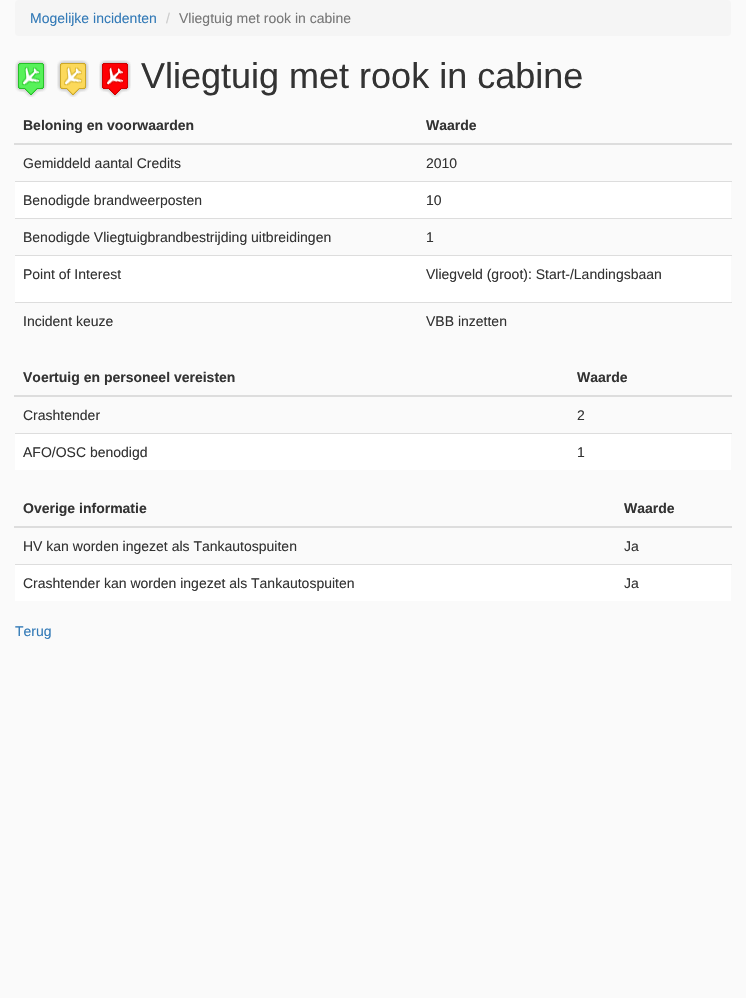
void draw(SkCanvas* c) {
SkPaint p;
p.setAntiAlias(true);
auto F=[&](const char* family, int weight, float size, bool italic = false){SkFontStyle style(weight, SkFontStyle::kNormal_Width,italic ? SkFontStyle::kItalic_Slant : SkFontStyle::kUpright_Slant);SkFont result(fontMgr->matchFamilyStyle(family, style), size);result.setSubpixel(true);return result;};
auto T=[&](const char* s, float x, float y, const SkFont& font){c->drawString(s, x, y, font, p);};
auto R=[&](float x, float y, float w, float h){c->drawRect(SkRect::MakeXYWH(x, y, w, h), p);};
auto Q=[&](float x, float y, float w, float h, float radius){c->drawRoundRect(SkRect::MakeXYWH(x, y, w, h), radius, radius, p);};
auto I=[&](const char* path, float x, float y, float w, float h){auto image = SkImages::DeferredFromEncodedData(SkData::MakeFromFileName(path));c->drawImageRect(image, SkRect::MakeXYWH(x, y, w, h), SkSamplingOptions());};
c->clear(0xfffafafa);
p.setColor(0xfff5f5f5);
Q(15,0,716,36,4);
auto f1 = F("Liberation Sans",400,14);
p.setColor(0xff337ab7);
T("Mogelijke incidenten",30,23,f1);
p.setColor(0xffcccccc);
T("/",166,23,f1);
p.setColor(0xff777777);
T("Vliegtuig met rook in cabine",179,23,f1);
I("1.png",15,60,32,37);
I("2.png",57,60,32,37);
I("3.png",99,60,32,37);
auto f2 = F("Liberation Sans",400,36);
p.setColor(0xff333333);
T("Vliegtuig met rook in cabine",141,88,f2);
auto f3 = F("Liberation Sans",700,14);
T("Beloning en voorwaarden",23,130,f3);
p.setColor(0xffdddddd);
R(14,143,718,2);
p.setColor(0xff333333);
T("Waarde",426,130,f3);
T("Gemiddeld aantal Credits",23,168,f1);
T("2010",426,168,f1);
p.setColor(0xffffffff);
R(15,182,716,36);
p.setColor(0xff333333);
T("Benodigde brandweerposten",23,205,f1);
p.setColor(0xffdddddd);
R(15,181,717,1);
p.setColor(0xff333333);
T("10",426,205,f1);
T("Benodigde Vliegtuigbrandbestrijding uitbreidingen",23,242,f1);
p.setColor(0xffdddddd);
R(15,218,717,1);
p.setColor(0xff333333);
T("1",426,242,f1);
p.setColor(0xffffffff);
R(15,256,716,46);
p.setColor(0xff333333);
T("Point of Interest",23,279,f1);
p.setColor(0xffdddddd);
R(15,255,717,1);
p.setColor(0xff333333);
T("Vliegveld (groot): Start-/Landingsbaan",426,279,f1);
T("Incident keuze",23,326,f1);
p.setColor(0xffdddddd);
R(15,302,717,1);
p.setColor(0xff333333);
T("VBB inzetten",426,326,f1);
T("Voertuig en personeel vereisten",23,382,f3);
p.setColor(0xffdddddd);
R(14,395,718,2);
p.setColor(0xff333333);
T("Waarde",577,382,f3);
T("Crashtender",23,420,f1);
T("2",577,420,f1);
p.setColor(0xffffffff);
R(15,434,716,36);
p.setColor(0xff333333);
T("AFO/OSC benodigd",23,457,f1);
p.setColor(0xffdddddd);
R(15,433,717,1);
p.setColor(0xff333333);
T("1",577,457,f1);
T("Overige informatie",23,513,f3);
p.setColor(0xffdddddd);
R(14,526,718,2);
p.setColor(0xff333333);
T("Waarde",624,513,f3);
T("HV kan worden ingezet als Tankautospuiten",23,551,f1);
T("Ja",624,551,f1);
p.setColor(0xffffffff);
R(15,565,716,36);
p.setColor(0xff333333);
T("Crashtender kan worden ingezet als Tankautospuiten",23,588,f1);
p.setColor(0xffdddddd);
R(15,564,717,1);
p.setColor(0xff333333);
T("Ja",624,588,f1);
p.setColor(0xff337ab7);
T("Terug",15,636,f1);
}
